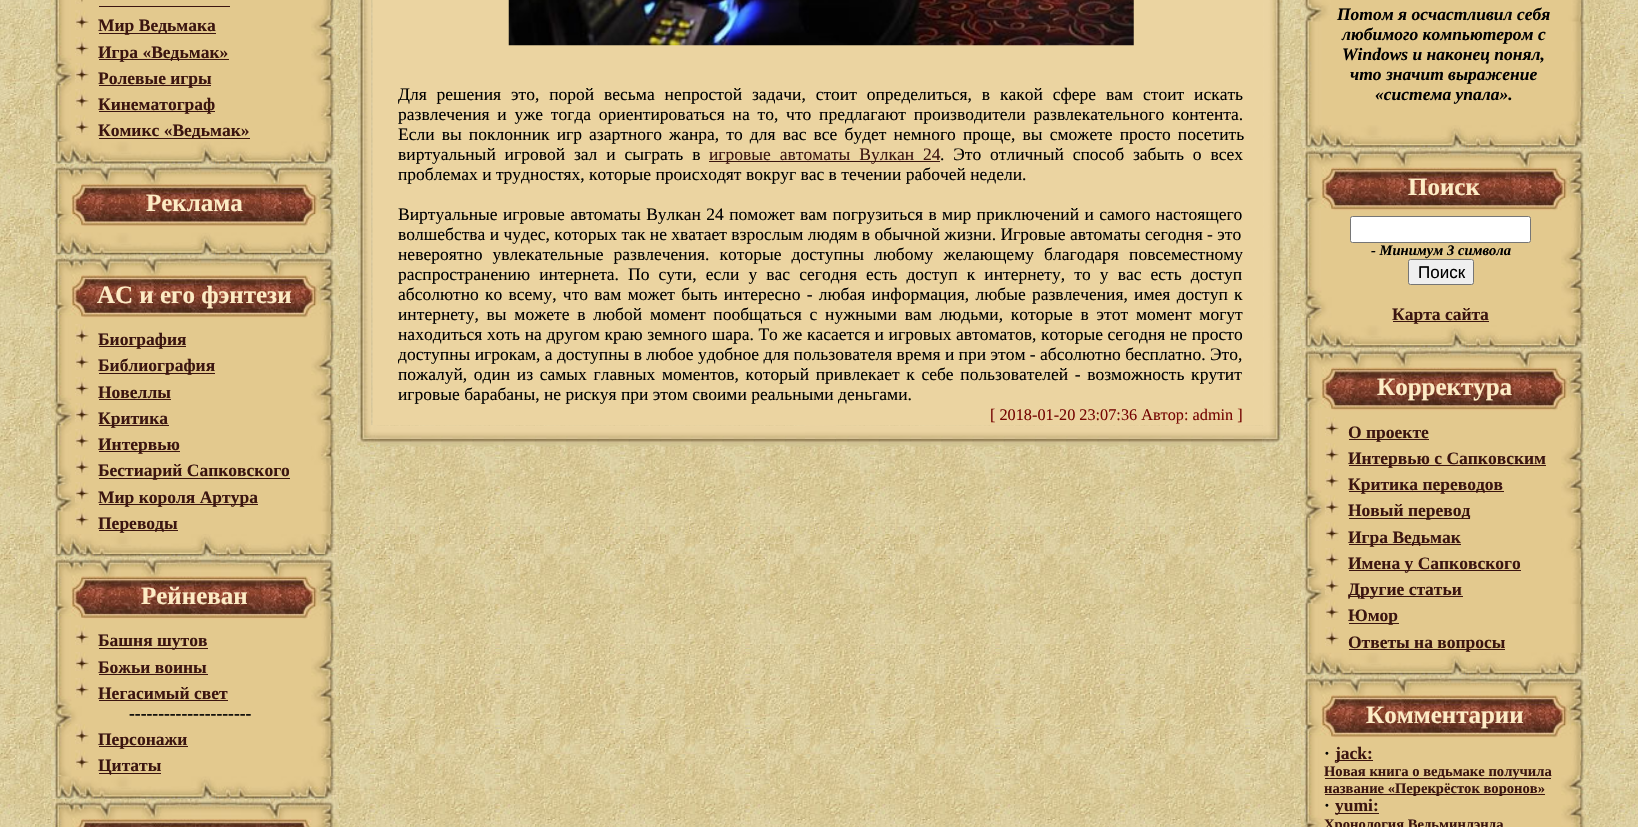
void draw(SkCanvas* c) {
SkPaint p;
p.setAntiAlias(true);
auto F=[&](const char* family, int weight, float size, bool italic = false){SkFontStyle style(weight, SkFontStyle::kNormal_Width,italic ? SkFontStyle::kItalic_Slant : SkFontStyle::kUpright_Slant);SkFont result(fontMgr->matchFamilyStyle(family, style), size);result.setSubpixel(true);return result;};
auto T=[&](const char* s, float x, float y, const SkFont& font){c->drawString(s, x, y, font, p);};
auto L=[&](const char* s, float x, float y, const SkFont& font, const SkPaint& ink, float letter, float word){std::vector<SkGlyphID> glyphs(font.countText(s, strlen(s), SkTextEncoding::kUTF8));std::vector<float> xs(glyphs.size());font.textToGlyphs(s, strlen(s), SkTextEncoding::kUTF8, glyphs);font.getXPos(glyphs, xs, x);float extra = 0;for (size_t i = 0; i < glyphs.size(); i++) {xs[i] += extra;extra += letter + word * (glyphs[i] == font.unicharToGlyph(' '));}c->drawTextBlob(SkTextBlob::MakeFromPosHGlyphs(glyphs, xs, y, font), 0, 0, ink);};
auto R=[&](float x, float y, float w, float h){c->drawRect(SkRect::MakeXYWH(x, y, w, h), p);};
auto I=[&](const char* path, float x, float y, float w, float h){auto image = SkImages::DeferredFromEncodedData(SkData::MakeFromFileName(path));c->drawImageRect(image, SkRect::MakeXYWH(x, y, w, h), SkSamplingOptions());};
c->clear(0xffffffff);
I("1.png",0,91,1638,736);
I("2.png",0,0,1638,91);
I("3.png",51,0,288,164);
I("4.png",75,0,8,4);
p.setColor(0xff3b1510);
R(99,6,131,1);
I("5.png",75,10,15,20);
R(99,33,117,1);
auto f1 = F("Liberation Serif",700,17.5);
T("Мир Ведьмака",98,31,f1);
I("6.png",75,37,15,19);
R(99,59,130,1);
T("Игра «Ведьмак»",98,58,f1);
I("7.png",75,63,15,20);
R(99,85,112,1);
T("Ролевые игры",98,84,f1);
I("8.png",75,89,15,20);
R(99,111,116,1);
T("Кинематограф",98,110,f1);
I("5.png",75,115,15,20);
R(99,138,151,1);
T("Комикс «Ведьмак»",98,136,f1);
I("9.png",51,141,288,23);
I("10.png",51,164,288,92);
I("11.png",51,164,288,63);
auto f2 = F("Liberation Serif",700,25);
p.setColor(0xfffdecc5);
T("Реклама",146,211,f2);
I("13.png",51,255,288,302);
I("14.png",51,255,288,63);
I("12.png",51,232,288,24);
T("АС и его фэнтези",97,303,f2);
I("8.png",75,324,15,20);
p.setColor(0xff3b1510);
R(99,346,87,1);
T("Биография",98,345,f1);
I("5.png",75,350,15,20);
R(99,373,116,1);
T("Библиография",98,371,f1);
I("15.png",75,377,15,19);
T("Новеллы",98,398,f1);
R(99,399,72,1);
I("16.png",75,403,15,19);
R(99,425,70,1);
T("Критика",98,424,f1);
I("17.png",75,429,15,20);
R(99,451,81,1);
T("Интервью",98,450,f1);
I("5.png",75,455,15,20);
R(99,478,191,1);
T("Бестиарий Сапковского",98,476,f1);
I("18.png",75,482,15,21);
R(99,504,159,1);
T("Мир короля Артура",98,503,f1);
I("7.png",75,508,15,20);
R(99,530,79,1);
T("Переводы",98,529,f1);
I("20.png",51,556,288,243);
I("21.png",51,556,288,63);
I("19.png",51,534,288,23);
p.setColor(0xfffdecc5);
T("Рейневан",141,604,f2);
I("5.png",75,625,15,20);
p.setColor(0xff3b1510);
R(99,648,109,1);
T("Башня шутов",98,646,f1);
I("15.png",75,652,15,19);
T("Божьи воины",98,673,f1);
R(99,674,109,1);
I("7.png",75,678,15,20);
T("Негасимый свет",98,699,f1);
R(99,700,129,1);
p.setColor(0xff000000);
T("---------------------",129,719,f1);
I("8.png",75,724,15,20);
p.setColor(0xff3b1510);
R(99,746,89,1);
T("Персонажи",98,745,f1);
I("5.png",75,750,15,20);
R(99,773,62,1);
T("Цитаты",98,771,f1);
I("22.png",51,776,288,23);
I("23.png",51,799,288,28);
I("24.png",51,799,288,28);
p.setColor(0xffebd4a1);
R(372,0,891,425);
I("25.png",357,0,16,426);
I("26.png",1263,0,20,426);
I("27.png",508,0,626,46);
auto f3 = F("Liberation Serif",400,17.5);
p.setColor(0xff000000);
L("Для решения это, порой весьма непростой задачи, стоит определиться, в какой сфере вам стоит искать",398,100,f3,p,0,5.5);
L("развлечения и уже тогда ориентироваться на то, что предлагают производители развлекательного контента.",398,120,f3,p,0,3.4);
L("Если вы поклонник игр азартного жанра, то для вас все будет немного проще, вы сможете просто посетить",398,140,f3,p,0,2.75);
L("виртуальный игровой зал и сыграть в",398,160,f3,p,0,4.5);
p.setColor(0xff3b1510);
R(709,161,231,1);
L("игровые автоматы Вулкан 24",709,160,f3,p,0,4.5);
p.setColor(0xff000000);
L(". Это отличный способ забыть о всех",940,160,f3,p,0,4.5);
T("проблемах и трудностях, которые происходят вокруг вас в течении рабочей недели.",398,180,f3);
L("Виртуальные игровые автоматы Вулкан 24 поможет вам погрузиться в мир приключений и самого настоящего",398,220,f3,p,0,1);
T("волшебства и чудес, которых так не хватает взрослым людям в обычной жизни. Игровые автоматы сегодня - это",398,240,f3);
L("невероятно увлекательные развлечения. которые доступны любому желающему благодаря повсеместному",398,260,f3,p,0,5.75);
L("распространению интернета. По сути, если у вас сегодня есть доступ к интернету, то у вас есть доступ",398,280,f3,p,0,4.75);
L("абсолютно ко всему, что вам может быть интересно - любая информация, любые развлечения, имея доступ к",398,300,f3,p,0,1.9);
L("интернету, вы можете в любой момент пообщаться с нужными вам людьми, которые в этот момент могут",398,320,f3,p,0,3.4);
L("находиться хоть на другом краю земного шара. То же касается и игровых автоматов, которые сегодня не просто",398,340,f3,p,0,.25);
T("доступны игрокам, а доступны в любое удобное для пользователя время и при этом - абсолютно бесплатно. Это,",398,360,f3);
L("пожалуй, один из самых главных моментов, который привлекает к себе пользователей - возможность крутит",398,380,f3,p,0,2.25);
T("игровые барабаны, не рискуя при этом своими реальными деньгами.",398,400,f3);
auto f4 = F("Liberation Serif",400,16.25);
p.setColor(0xff760602);
T("[ 2018-01-20 23:07:36 Автор: admin ]",990,420,f4);
I("28.png",357,425,23,22);
I("29.png",357,425,20,22);
I("30.png",380,425,883,22);
I("31.png",805,425,31,22);
I("32.png",1262,425,21,22);
I("33.png",1262,425,21,22);
I("34.png",1301,0,288,148);
auto f5 = F("Liberation Serif",700,17.5,true);
p.setColor(0xff000000);
T("Потом я осчастливил себя",1337,20,f5);
T("любимого компьютером с",1342,40,f5);
T("Windows и наконец понял,",1342,60,f5);
T("что значит выражение",1350,80,f5);
T("«система упала».",1375,100,f5);
I("36.png",1301,147,288,201);
I("37.png",1301,147,288,64);
I("35.png",1301,125,288,23);
p.setColor(0xfffdecc5);
T("Поиск",1408,195,f2);
p.setColor(0xffffffff);
c->drawRoundRect(SkRect::MakeXYWH(1350.5,216.5,180,26),2,2,p);
p.setStroke(true);
p.setStrokeWidth(1);
p.setColor(0xff767676);
c->drawRoundRect(SkRect::MakeXYWH(1350.5,216.5,180,26),2,2,p);
auto f6 = F("Liberation Serif",700,14.6,true);
p.setStroke(false);
p.setColor(0xff000000);
T("- Минимум 3 символа",1371,255,f6);
p.setColor(0xffefefef);
c->drawRoundRect(SkRect::MakeXYWH(1408.5,259.5,65,25),2,2,p);
p.setStroke(true);
p.setColor(0xff767676);
c->drawRoundRect(SkRect::MakeXYWH(1408.5,259.5,65,25),2,2,p);
auto f7 = F("Liberation Sans",400,17);
p.setStroke(false);
p.setColor(0xff000000);
T("Поиск",1418,278,f7);
p.setColor(0xff3b1510);
R(1393,321,96,1);
T("Карта сайта",1392,320,f1);
I("39.png",1301,347,288,329);
I("40.png",1301,347,288,64);
I("38.png",1301,325,288,23);
p.setColor(0xfffdecc5);
T("Корректура",1377,395,f2);
I("15.png",1325,417,15,19);
p.setColor(0xff3b1510);
R(1349,439,80,1);
T("О проекте",1348,438,f1);
I("7.png",1325,443,15,20);
R(1349,465,197,1);
T("Интервью с Сапковским",1348,464,f1);
I("8.png",1325,469,15,20);
R(1349,491,155,1);
T("Критика переводов",1348,490,f1);
I("5.png",1325,495,15,20);
R(1349,518,121,1);
T("Новый перевод",1348,516,f1);
I("15.png",1325,522,15,19);
R(1349,544,112,1);
T("Игра Ведьмак",1348,543,f1);
I("7.png",1325,548,15,20);
R(1349,570,172,1);
T("Имена у Сапковского",1348,569,f1);
I("41.png",1325,574,15,21);
R(1349,596,114,1);
T("Другие статьи",1348,595,f1);
I("42.png",1325,600,15,20);
R(1349,623,50,1);
T("Юмор",1348,621,f1);
I("15.png",1325,627,15,19);
R(1349,649,156,1);
T("Ответы на вопросы",1348,648,f1);
I("44.png",1301,675,288,152);
I("45.png",1301,675,288,63);
I("43.png",1301,652,288,24);
p.setColor(0xfffdecc5);
T("Комментарии",1366,723,f2);
p.setColor(0xff000000);
T("·",1324,759,f1);
p.setColor(0xff3b1510);
R(1335,760,38,1);
T("jack:",1335,759,f1);
R(1325,778,226,1);
auto f8 = F("Liberation Serif",700,14.6);
T("Новая книга о ведьмаке получила",1324,776,f8);
R(1325,794,220,1);
T("название «Перекрёсток воронов»",1324,793,f8);
p.setColor(0xff000000);
T("·",1324,811,f1);
p.setColor(0xff3b1510);
R(1335,813,44,1);
T("yumi:",1335,811,f1);
T("Хронология Ведьминлэнда",1324,829,f8);
}
